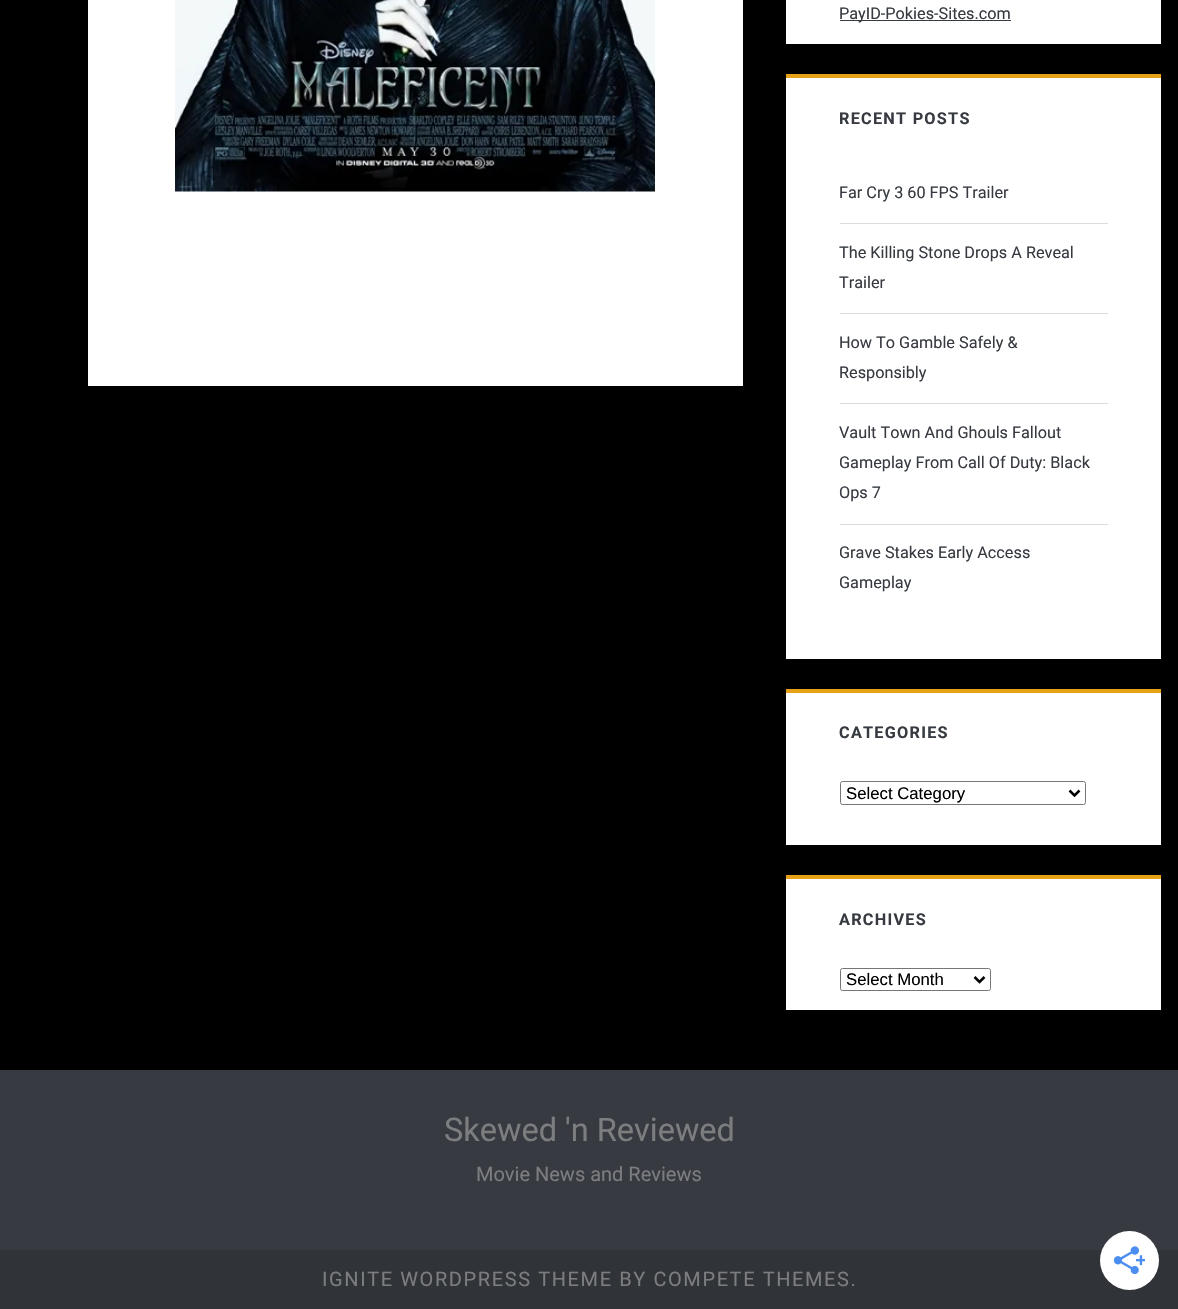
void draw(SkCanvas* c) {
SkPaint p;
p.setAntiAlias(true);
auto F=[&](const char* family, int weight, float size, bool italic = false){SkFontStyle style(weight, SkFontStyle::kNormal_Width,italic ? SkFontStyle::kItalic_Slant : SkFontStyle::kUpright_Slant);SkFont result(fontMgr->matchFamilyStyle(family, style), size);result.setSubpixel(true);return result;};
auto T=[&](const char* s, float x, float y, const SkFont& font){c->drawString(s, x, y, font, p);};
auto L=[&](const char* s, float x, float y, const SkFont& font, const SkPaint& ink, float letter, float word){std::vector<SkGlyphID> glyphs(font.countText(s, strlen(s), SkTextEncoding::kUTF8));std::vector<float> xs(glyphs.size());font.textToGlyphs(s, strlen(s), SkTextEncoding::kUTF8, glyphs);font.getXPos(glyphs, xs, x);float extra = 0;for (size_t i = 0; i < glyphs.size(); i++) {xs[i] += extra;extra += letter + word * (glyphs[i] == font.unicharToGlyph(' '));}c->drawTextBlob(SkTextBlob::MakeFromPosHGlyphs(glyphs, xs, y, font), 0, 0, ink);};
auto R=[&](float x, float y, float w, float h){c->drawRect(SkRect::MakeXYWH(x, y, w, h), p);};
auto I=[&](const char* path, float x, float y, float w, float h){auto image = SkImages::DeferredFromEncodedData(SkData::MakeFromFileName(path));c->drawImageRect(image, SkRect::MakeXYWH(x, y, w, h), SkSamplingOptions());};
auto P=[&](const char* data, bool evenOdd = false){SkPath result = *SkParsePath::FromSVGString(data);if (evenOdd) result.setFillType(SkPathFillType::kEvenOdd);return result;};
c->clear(0xff000000);
p.setColor(0xffffffff);
R(88,0,655,386);
I("1.png",175,0,480,192);
R(786,0,375,44);
p.setColor(0xff373b41);
R(840,20,171,1);
auto f1 = F("Roboto",400,16.25);
T("PayID-Pokies-Sites.com",839,19,f1);
p.setColor(0xffffffff);
R(786,78,375,581);
p.setColor(0xffe6a117);
R(786,74,375,4);
auto f2 = F("Roboto",700,16.25);
p.setColor(0xff373b41);
L("RECENT POSTS",839,124,f2,p,1.25,0);
p.setColor(0xffd9dcdf);
R(840,223,268,1);
p.setColor(0xff373b41);
T("Far Cry 3 60 FPS Trailer",839,198,f1);
p.setColor(0xffd9dcdf);
R(840,313,268,1);
p.setColor(0xff373b41);
T("The Killing Stone Drops A Reveal",839,258,f1);
T("Trailer",839,288,f1);
p.setColor(0xffd9dcdf);
R(840,403,268,1);
p.setColor(0xff373b41);
T("How To Gamble Safely &",839,348,f1);
T("Responsibly",839,378,f1);
p.setColor(0xffd9dcdf);
R(840,524,268,1);
p.setColor(0xff373b41);
T("Vault Town And Ghouls Fallout",839,438,f1);
T("Gameplay From Call Of Duty: Black",839,468,f1);
T("Ops 7",839,498,f1);
T("Grave Stakes Early Access",839,558,f1);
T("Gameplay",839,588,f1);
p.setColor(0xffffffff);
R(786,693,375,152);
p.setColor(0xffe6a117);
R(786,689,375,4);
p.setColor(0xff373b41);
L("CATEGORIES",839,738,f2,p,1.25,0);
p.setStroke(true);
p.setStrokeWidth(1);
p.setColor(0xff767676);
c->drawRoundRect(SkRect::MakeXYWH(840.5,781.5,245,23),2,2,p);
p.setStrokeWidth(2.5);
p.setColor(0xff000000);
c->drawPath(P("M1069.5 790.5l5 5l5-5"),p);
auto f3 = F("Liberation Sans",400,16.75);
p.setStroke(false);
T("Select Category",846,799,f3);
p.setColor(0xffffffff);
R(786,879,375,131);
p.setColor(0xffe6a117);
R(786,875,375,4);
p.setColor(0xff373b41);
L("ARCHIVES",839,925,f2,p,1.25,0);
p.setStroke(true);
p.setStrokeWidth(1);
p.setColor(0xff767676);
c->drawRoundRect(SkRect::MakeXYWH(840.5,968.5,150,22),2,2,p);
p.setStrokeWidth(2.5);
p.setColor(0xff000000);
c->drawPath(P("M974.5 977l5 5l5-5"),p);
p.setStroke(false);
T("Select Month",846,985,f3);
p.setColor(0xff373b41);
R(0,1070,1178,180);
auto f4 = F("Roboto",400,32.5);
p.setColor(0xff7c7d7f);
T("Skewed 'n Reviewed",444,1141,f4);
auto f5 = F("Roboto",400,20);
T("Movie News and Reviews",476,1181,f5);
p.setColor(0xff303338);
R(0,1250,1178,59);
p.setColor(0xff7c7d7f);
L("IGNITE WORDPRESS THEME BY COMPETE THEMES.",322,1286,f5,p,1.6,0);
p.setColor(0xffffffff);
c->drawCircle(1129.5,1260.5,29.5,p);
I("2.png",1114,1246,31,28);
}
